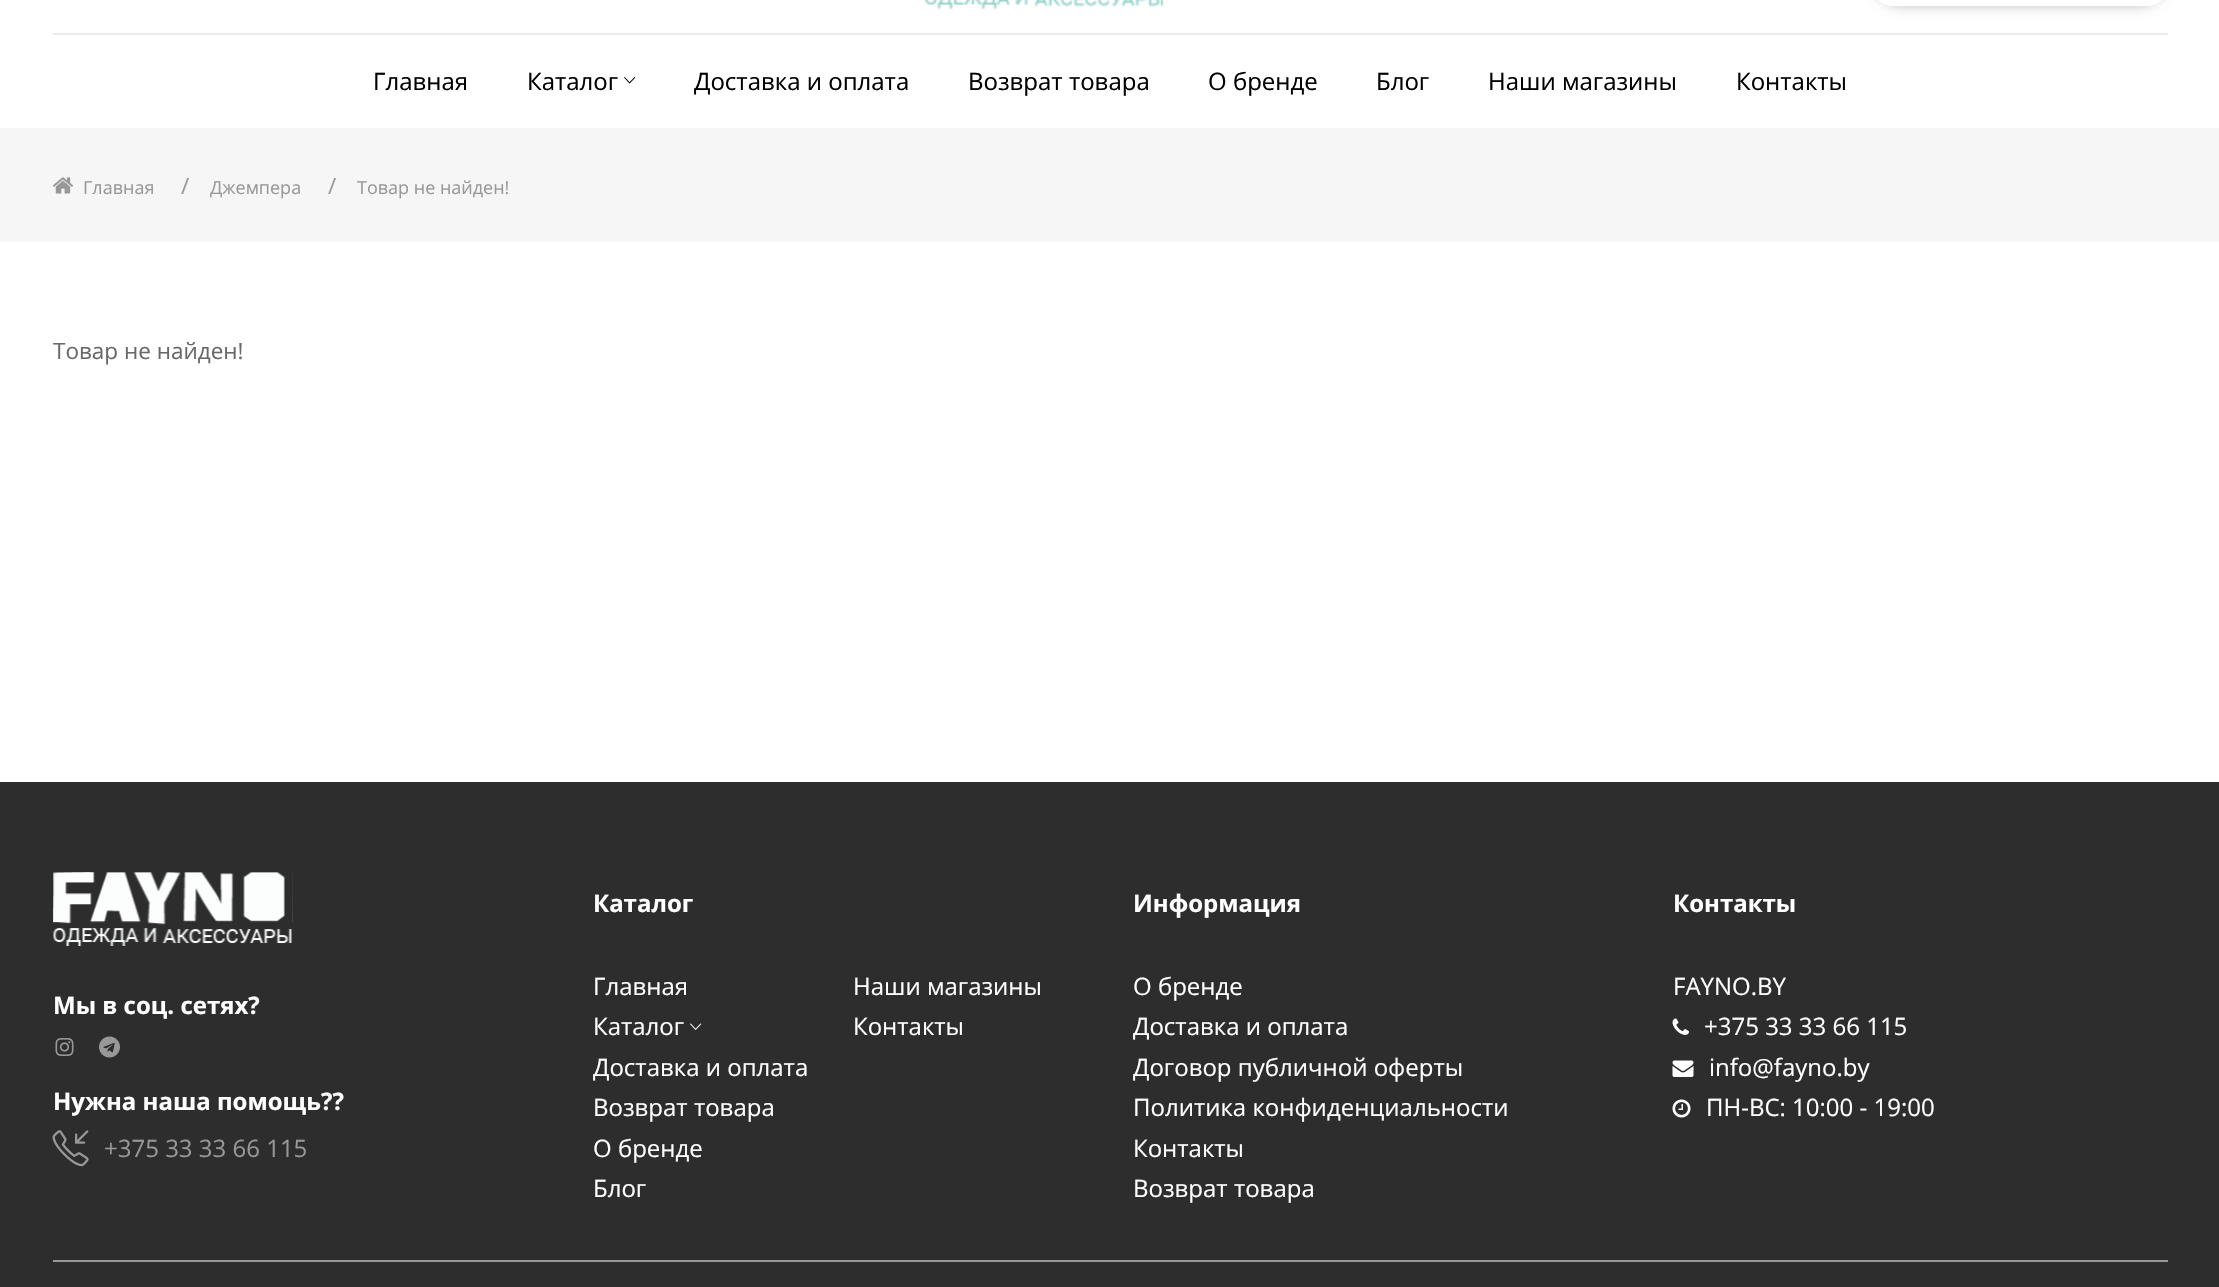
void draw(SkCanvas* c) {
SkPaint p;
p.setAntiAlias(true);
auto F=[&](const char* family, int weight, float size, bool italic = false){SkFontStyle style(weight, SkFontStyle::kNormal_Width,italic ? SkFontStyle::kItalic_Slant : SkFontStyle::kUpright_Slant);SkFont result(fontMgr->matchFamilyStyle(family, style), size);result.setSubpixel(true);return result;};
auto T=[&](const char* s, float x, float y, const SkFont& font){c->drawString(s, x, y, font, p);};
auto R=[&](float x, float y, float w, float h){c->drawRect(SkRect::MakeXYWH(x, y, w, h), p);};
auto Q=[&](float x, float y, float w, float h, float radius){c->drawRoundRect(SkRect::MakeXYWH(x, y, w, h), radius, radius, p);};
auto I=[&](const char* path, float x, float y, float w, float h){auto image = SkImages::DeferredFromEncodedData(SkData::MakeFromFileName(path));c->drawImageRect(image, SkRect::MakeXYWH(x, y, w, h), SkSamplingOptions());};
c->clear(0xffffffff);
I("1.png",924,0,240,10);
p.setColor(0x40000000);
p.setMaskFilter(SkMaskFilter::MakeBlur(kNormal_SkBlurStyle, 6));
c->drawRoundRect(SkRect::MakeXYWH(1872,-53,296,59),34.5,34.5,p);
p.setMaskFilter(nullptr);
p.setColor(0xffffffff);
Q(1872,-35,296,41,34.5);
p.setColor(0xffe9e9e9);
R(53,33,2115,2);
auto f1 = F("Open Sans",400,24);
p.setColor(0xff000000);
T("Главная",373,90,f1);
T("Каталог",527,90,f1);
I("2.png",624,77,12,7);
T("Доставка и оплата",694,90,f1);
T("Возврат товара",968,90,f1);
T("О бренде",1208,90,f1);
T("Блог",1376,90,f1);
T("Наши магазины",1488,90,f1);
T("Контакты",1736,90,f1);
p.setColor(0xfff6f6f6);
R(0,128,2219,114);
I("3.png",52,177,21,17);
auto f2 = F("Open Sans",400,18);
p.setColor(0xff989898);
T("Главная",83,194,f2);
auto f3 = F("Open Sans",400,22.5);
T("/",181,194,f3);
T("Джемпера",210,194,f2);
T("/",328,194,f3);
T("Товар не найден!",357,194,f2);
p.setColor(0xff69696c);
T("Товар не найден!",53,359,f3);
p.setColor(0xff2d2d2d);
R(0,782,2219,505);
I("4.png",53,872,240,74);
auto f4 = F("Open Sans",700,24);
p.setColor(0xffffffff);
T("Мы в соц. сетях?",53,1014,f4);
I("5.png",55,1038,19,18);
I("6.png",99,1036,21,22);
T("Нужна наша помощь?\077",53,1110,f4);
I("7.png",52,1130,37,37);
p.setColor(0xff989898);
T("+375 33 33 66 115",104,1157,f1);
p.setColor(0xffffffff);
T("Каталог",593,912,f4);
T("Главная",593,995,f1);
T("Наши магазины",853,995,f1);
T("Каталог",593,1035,f1);
I("8.png",690,1023,12,7);
T("Контакты",853,1035,f1);
T("Доставка и оплата",593,1076,f1);
T("Возврат товара",593,1116,f1);
T("О бренде",593,1157,f1);
T("Блог",593,1197,f1);
T("Информация",1133,912,f4);
T("О бренде",1133,995,f1);
T("Доставка и оплата",1133,1035,f1);
T("Договор публичной оферты",1133,1076,f1);
T("Политика конфиденциальности",1133,1116,f1);
T("Контакты",1133,1157,f1);
T("Возврат товара",1133,1197,f1);
T("Контакты",1673,912,f4);
T("FAYNO.BY",1673,995,f1);
I("9.png",1672,1018,17,17);
T("+375 33 33 66 115",1704,1035,f1);
I("10.png",1672,1060,22,17);
T("info@fayno.by",1709,1076,f1);
I("11.png",1672,1099,19,19);
T("ПН-ВС: 10:00 - 19:00",1706,1116,f1);
p.setColor(0xff989898);
R(53,1260,2115,2);
}
